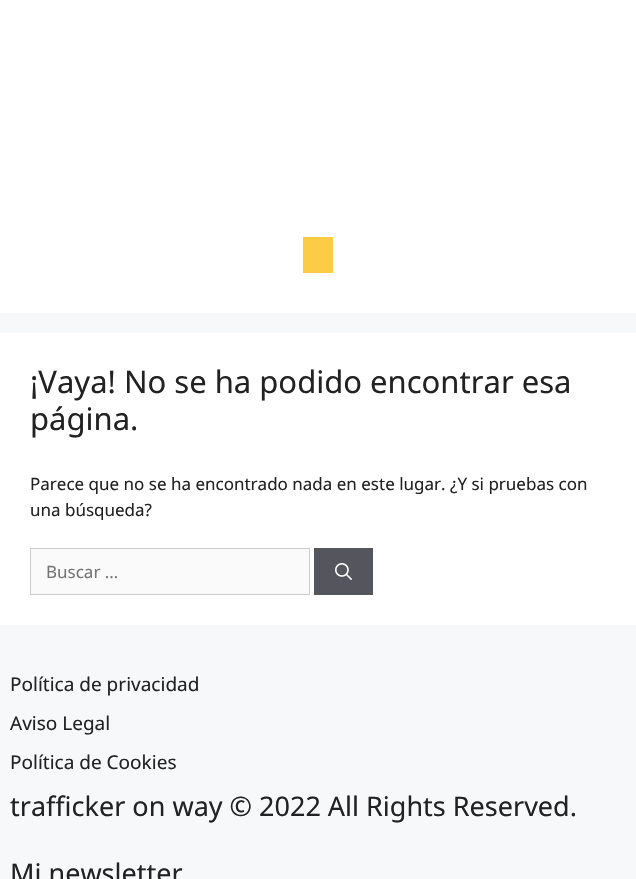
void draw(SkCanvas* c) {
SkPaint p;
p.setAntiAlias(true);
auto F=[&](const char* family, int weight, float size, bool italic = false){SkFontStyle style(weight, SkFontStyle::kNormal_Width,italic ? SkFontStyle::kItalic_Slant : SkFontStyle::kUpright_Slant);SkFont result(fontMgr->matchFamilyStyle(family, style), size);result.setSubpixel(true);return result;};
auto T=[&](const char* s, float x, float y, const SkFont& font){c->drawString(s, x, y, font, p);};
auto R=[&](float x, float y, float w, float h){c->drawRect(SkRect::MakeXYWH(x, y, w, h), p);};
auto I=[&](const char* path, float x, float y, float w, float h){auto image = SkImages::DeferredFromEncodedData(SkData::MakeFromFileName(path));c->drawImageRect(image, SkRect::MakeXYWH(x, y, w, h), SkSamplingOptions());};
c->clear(0xfff7f8f9);
p.setColor(0xffffffff);
R(0,0,636,313);
p.setColor(0xfffccc47);
R(303,237,30,36);
p.setColor(0xffffffff);
R(0,333,636,292);
auto f1 = F("Noto Sans",400,31);
p.setColor(0xff222222);
T("¡Vaya! No se ha podido encontrar esa",30,393,f1);
T("página.",30,430,f1);
auto f2 = F("Noto Sans",400,17);
T("Parece que no se ha encontrado nada en este lugar. ¿Y si pruebas con",30,490,f2);
T("una búsqueda?",30,516,f2);
p.setColor(0xfffafafa);
c->drawRect(SkRect::MakeXYWH(30.5,548.5,279,46),p);
p.setStroke(true);
p.setStrokeWidth(1);
p.setColor(0xffcccccc);
c->drawRect(SkRect::MakeXYWH(30.5,548.5,279,46),p);
p.setStroke(false);
p.setColor(0xff757575);
T("Buscar …",46,578,f2);
p.setColor(0xff55555e);
R(314,548,59,47);
I("1.png",335,563,17,17);
auto f3 = F("Noto Sans",400,19);
p.setColor(0xff222222);
T("Política de privacidad",10,691,f3);
T("Aviso Legal",10,730,f3);
T("Política de Cookies",10,769,f3);
auto f4 = F("Noto Sans",400,27);
T("trafficker on way © 2022 All Rights Reserved.",10,816,f4);
T("Mi newsletter",10,883,f4);
}
